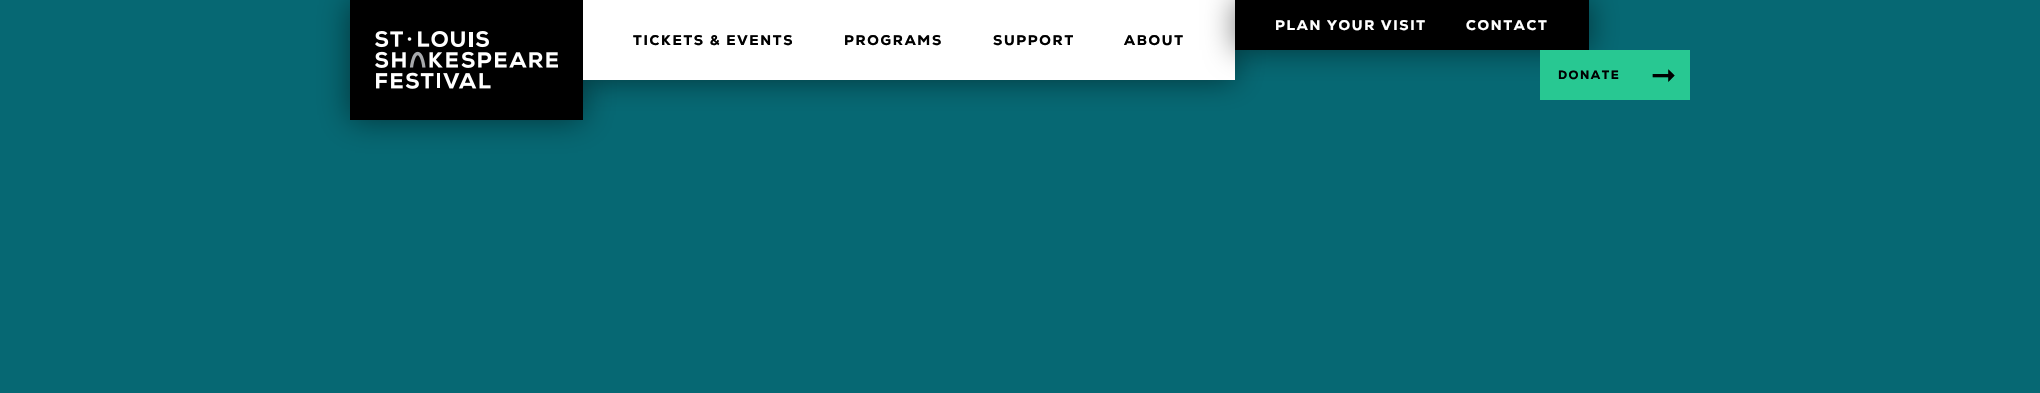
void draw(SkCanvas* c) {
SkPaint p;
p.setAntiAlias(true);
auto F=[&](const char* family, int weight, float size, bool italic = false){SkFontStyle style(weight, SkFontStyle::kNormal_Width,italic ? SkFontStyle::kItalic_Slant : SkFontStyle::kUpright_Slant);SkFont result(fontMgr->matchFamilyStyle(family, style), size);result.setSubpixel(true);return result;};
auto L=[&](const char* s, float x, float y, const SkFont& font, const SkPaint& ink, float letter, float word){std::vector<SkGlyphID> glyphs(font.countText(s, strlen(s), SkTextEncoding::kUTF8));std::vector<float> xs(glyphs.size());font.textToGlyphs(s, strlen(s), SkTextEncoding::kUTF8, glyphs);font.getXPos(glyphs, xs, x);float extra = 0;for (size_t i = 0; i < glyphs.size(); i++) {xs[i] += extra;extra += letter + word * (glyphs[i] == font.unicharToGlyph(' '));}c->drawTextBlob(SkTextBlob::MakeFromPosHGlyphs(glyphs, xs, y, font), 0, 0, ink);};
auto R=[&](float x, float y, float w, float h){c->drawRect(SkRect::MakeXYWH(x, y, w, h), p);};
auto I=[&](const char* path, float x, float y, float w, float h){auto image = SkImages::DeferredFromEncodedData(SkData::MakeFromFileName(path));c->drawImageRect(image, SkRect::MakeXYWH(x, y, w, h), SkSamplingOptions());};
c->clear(0xff066873);
p.setColor(0x80000000);
p.setMaskFilter(SkMaskFilter::MakeBlur(kNormal_SkBlurStyle, 15));
c->drawRect(SkRect::MakeXYWH(350,0,233,120),p);
p.setMaskFilter(nullptr);
p.setColor(0xff000000);
R(350,0,233,120);
I("1.png",375,31,183,58);
p.setColor(0x80000000);
p.setMaskFilter(SkMaskFilter::MakeBlur(kNormal_SkBlurStyle, 15));
c->drawRect(SkRect::MakeXYWH(583,0,652,80),p);
p.setMaskFilter(nullptr);
p.setColor(0xffffffff);
R(583,0,652,80);
p.setColor(0x80000000);
p.setMaskFilter(SkMaskFilter::MakeBlur(kNormal_SkBlurStyle, 15));
c->drawRect(SkRect::MakeXYWH(1235,0,354,50),p);
p.setMaskFilter(nullptr);
p.setColor(0xff000000);
R(1235,0,354,50);
auto f1 = F("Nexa",900,14);
p.setColor(0xffffffff);
L("PLAN YOUR VISIT",1275,30,f1,p,1.7,0);
L("CONTACT",1466,30,f1,p,1.7,0);
p.setColor(0xff000000);
L("TICKETS & EVENTS",633,45,f1,p,1.7,0);
L("PROGRAMS",844,45,f1,p,1.7,0);
L("SUPPORT",993,45,f1,p,1.7,0);
L("ABOUT",1124,45,f1,p,1.7,0);
p.setColor(0xff28c892);
R(1540,50,150,50);
auto f2 = F("Nexa",900,12);
p.setColor(0xff000000);
L("DONATE",1558,79,f2,p,1.5,0);
auto f3 = F("DejaVu Sans",400,30);
L("➞",1651,85,f3,p,1.5,0);
}
